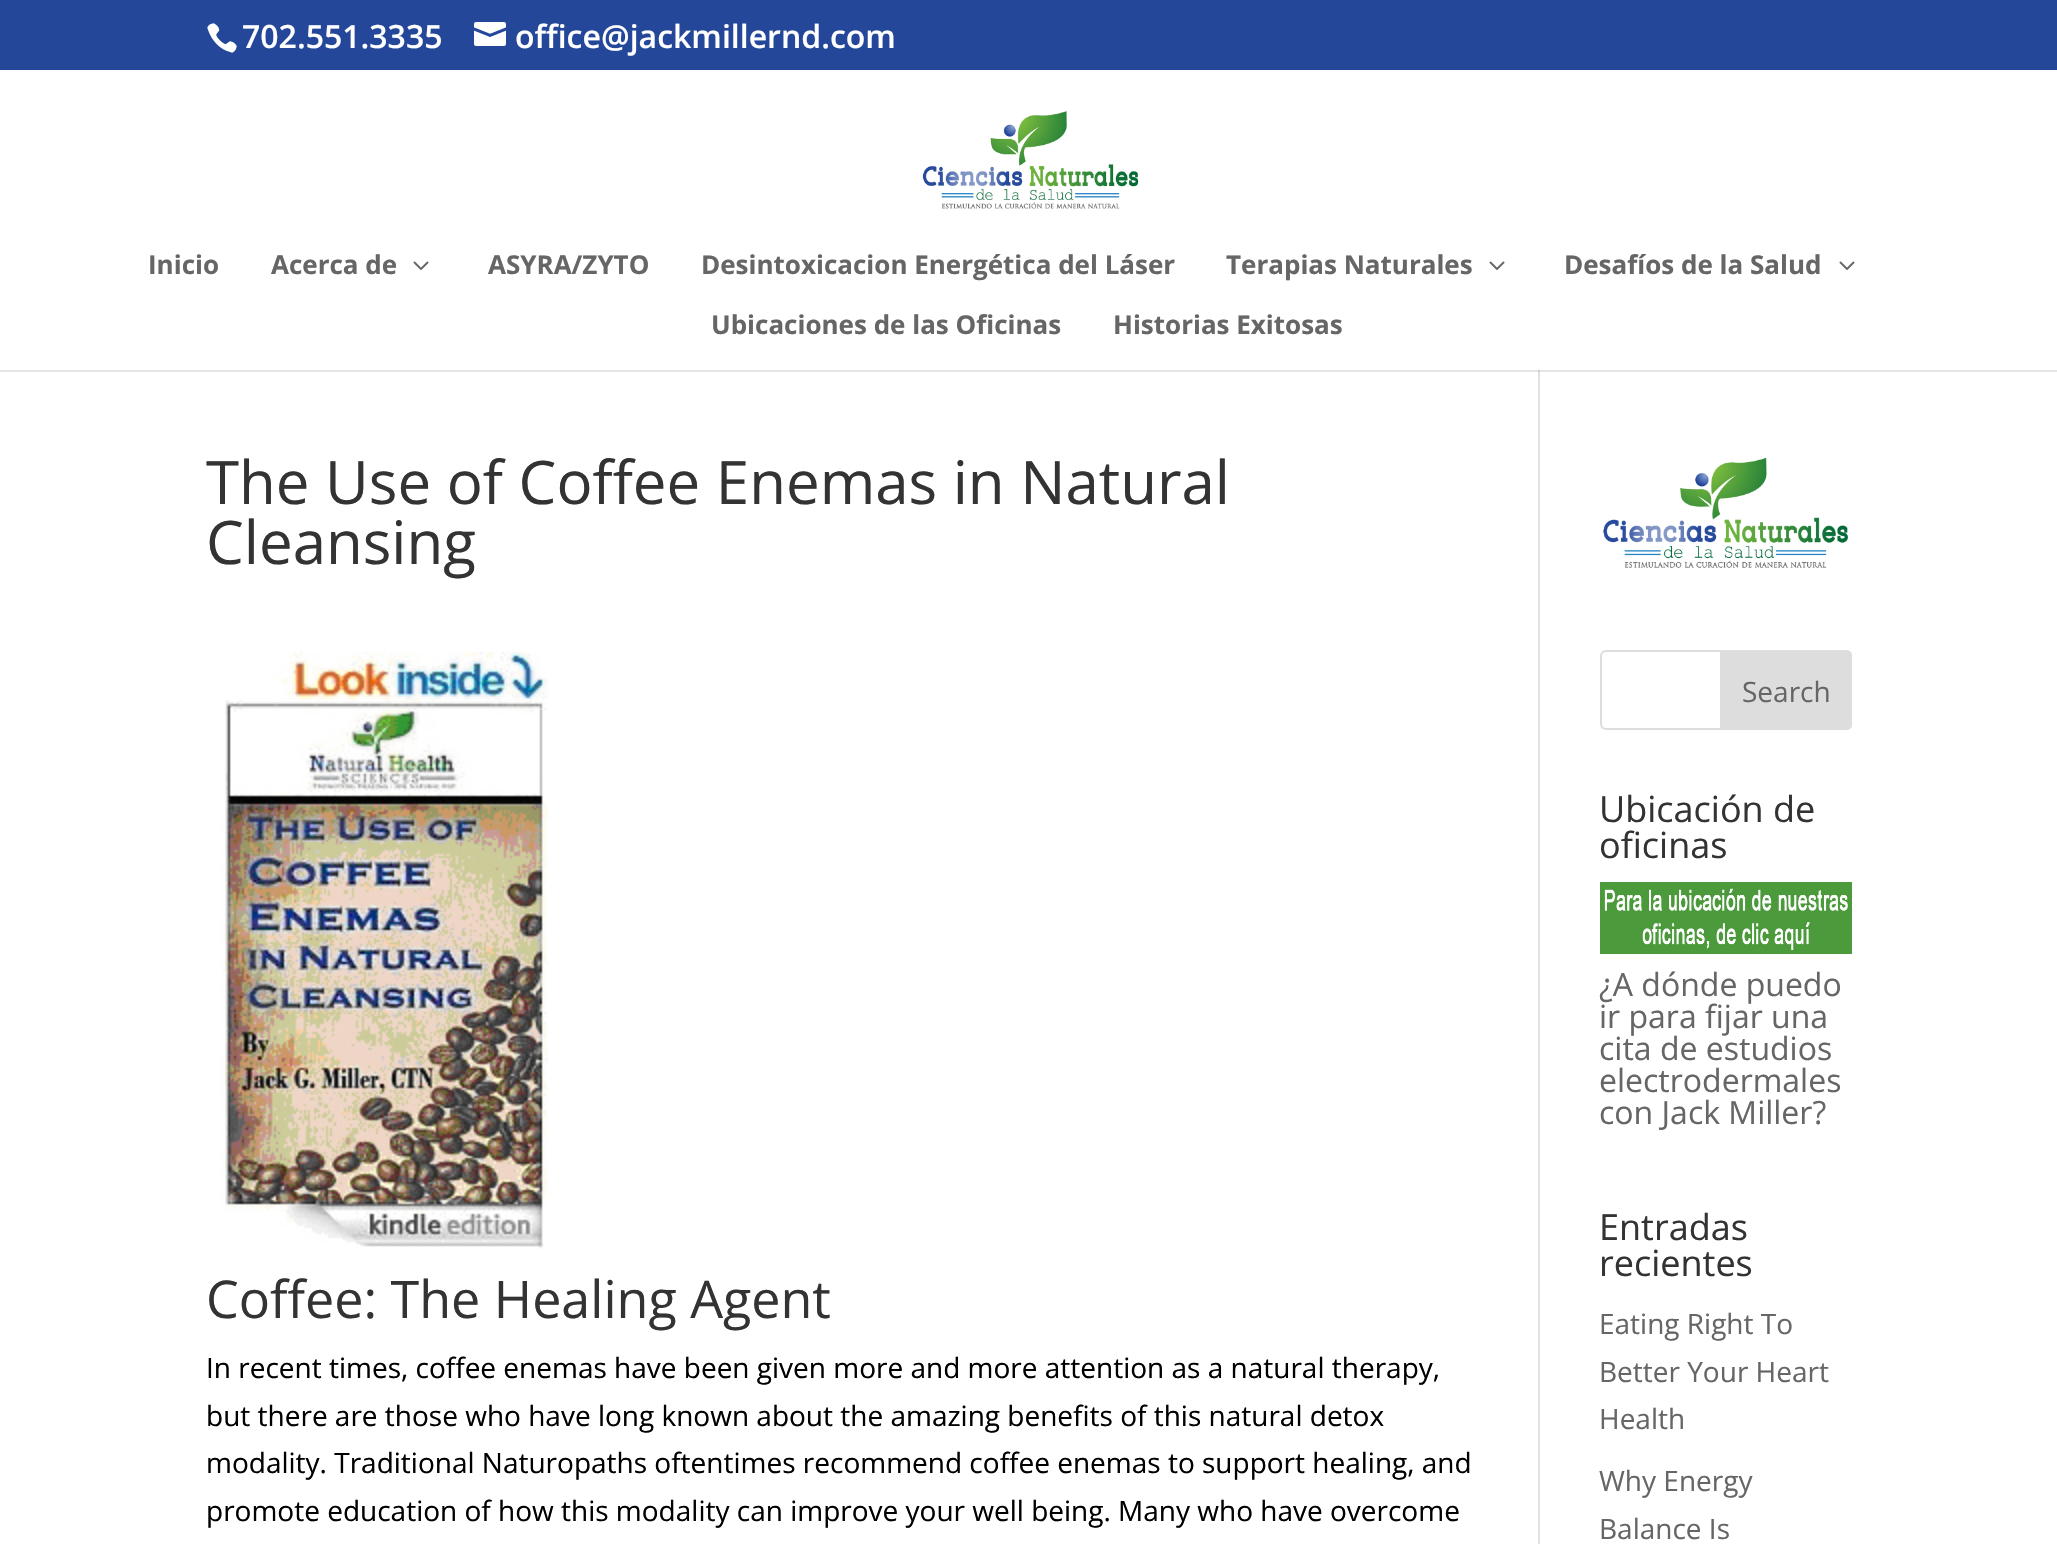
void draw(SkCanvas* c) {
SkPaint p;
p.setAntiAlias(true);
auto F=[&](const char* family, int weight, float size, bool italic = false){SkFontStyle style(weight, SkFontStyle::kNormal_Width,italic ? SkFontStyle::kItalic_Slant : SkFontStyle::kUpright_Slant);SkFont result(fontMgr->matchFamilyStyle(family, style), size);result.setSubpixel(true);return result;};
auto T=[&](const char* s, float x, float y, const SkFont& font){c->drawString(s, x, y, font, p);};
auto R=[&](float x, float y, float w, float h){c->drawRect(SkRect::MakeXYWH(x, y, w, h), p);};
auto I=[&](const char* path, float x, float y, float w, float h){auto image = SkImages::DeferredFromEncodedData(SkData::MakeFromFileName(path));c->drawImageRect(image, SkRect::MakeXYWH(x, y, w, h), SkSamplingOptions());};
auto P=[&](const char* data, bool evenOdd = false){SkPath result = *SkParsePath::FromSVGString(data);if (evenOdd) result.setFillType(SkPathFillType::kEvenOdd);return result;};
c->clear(0xffffffff);
p.setColor(0xffe6e6e6);
R(0,370,2057,2);
p.setColor(0xff244799);
R(0,0,2057,70);
I("1.png",207,23,30,30);
auto f1 = F("Open Sans",600,32);
p.setColor(0xffffffff);
T("702.551.3335",242,48,f1);
I("2.png",474,22,32,24);
T("office@jackmillernd.com",515,48,f1);
I("3.png",922,111,217,98);
auto f2 = F("Open Sans",700,26);
p.setColor(0xff666666);
T("Inicio",148,274,f2);
T("Acerca de",271,274,f2);
I("4.png",413,261,16,9);
T("ASYRA/ZYTO",488,274,f2);
T("Desintoxicacion Energética del Láser",701,274,f2);
T("Terapias Naturales",1226,274,f2);
I("4.png",1489,261,16,9);
T("Desafíos de la Salud",1564,274,f2);
I("4.png",1839,261,16,9);
T("Ubicaciones de las Oficinas",711,334,f2);
T("Historias Exitosas",1113,334,f2);
p.setColor(0xffe2e2e2);
R(1538,372,2,1172);
p.setColor(0xffcbcbcb);
R(1538,370,2,2);
auto f3 = F("Open Sans",400,60);
p.setColor(0xff333333);
T("The Use of Coffee Enemas in Natural",206,504,f3);
T("Cleansing",206,564,f3);
I("5.png",220,652,328,597);
auto f4 = F("Open Sans",400,52);
T("Coffee: The Healing Agent",206,1318,f4);
auto f5 = F("Open Sans",400,28);
p.setColor(0xff000000);
T("In recent times, coffee enemas have been given more and more attention as a natural therapy,",206,1378,f5);
T("but there are those who have long known about the amazing benefits of this natural detox",206,1426,f5);
T("modality. Traditional Naturopaths oftentimes recommend coffee enemas to support healing, and",206,1473,f5);
T("promote education of how this modality can improve your well being. Many who have overcome",206,1521,f5);
I("6.png",1603,457,246,111);
p.setStroke(true);
p.setStrokeWidth(2);
p.setColor(0xffdddddd);
c->drawRoundRect(SkRect::MakeXYWH(1601,651,250,78),5,5,p);
p.setStroke(false);
c->drawPath(P("M1721 651h125c3 0 5 2 5 5v68c0 3-2 5-5 5h-125z"),p);
p.setStroke(true);
c->drawPath(P("M1721 651h125c3 0 5 2 5 5v68c0 3-2 5-5 5h-125z"),p);
p.setStroke(false);
p.setColor(0xff666666);
T("Search",1742,702,f5);
auto f6 = F("Open Sans",400,36);
p.setColor(0xff333333);
T("Ubicación de",1599,822,f6);
T("oficinas",1599,858,f6);
I("7.png",1600,882,252,72);
auto f7 = F("Open Sans",400,32);
p.setColor(0xff666666);
T("¿A dónde puedo",1599,996,f7);
T("ir para fijar una",1599,1028,f7);
T("cita de estudios",1599,1060,f7);
T("electrodermales",1599,1092,f7);
T("con Jack Miller?",1599,1124,f7);
p.setColor(0xff333333);
T("Entradas",1599,1240,f6);
T("recientes",1599,1276,f6);
p.setColor(0xff666666);
T("Eating Right To",1599,1334,f5);
T("Better Your Heart",1599,1382,f5);
T("Health",1599,1429,f5);
T("Why Energy",1599,1491,f5);
T("Balance Is",1599,1539,f5);
}
